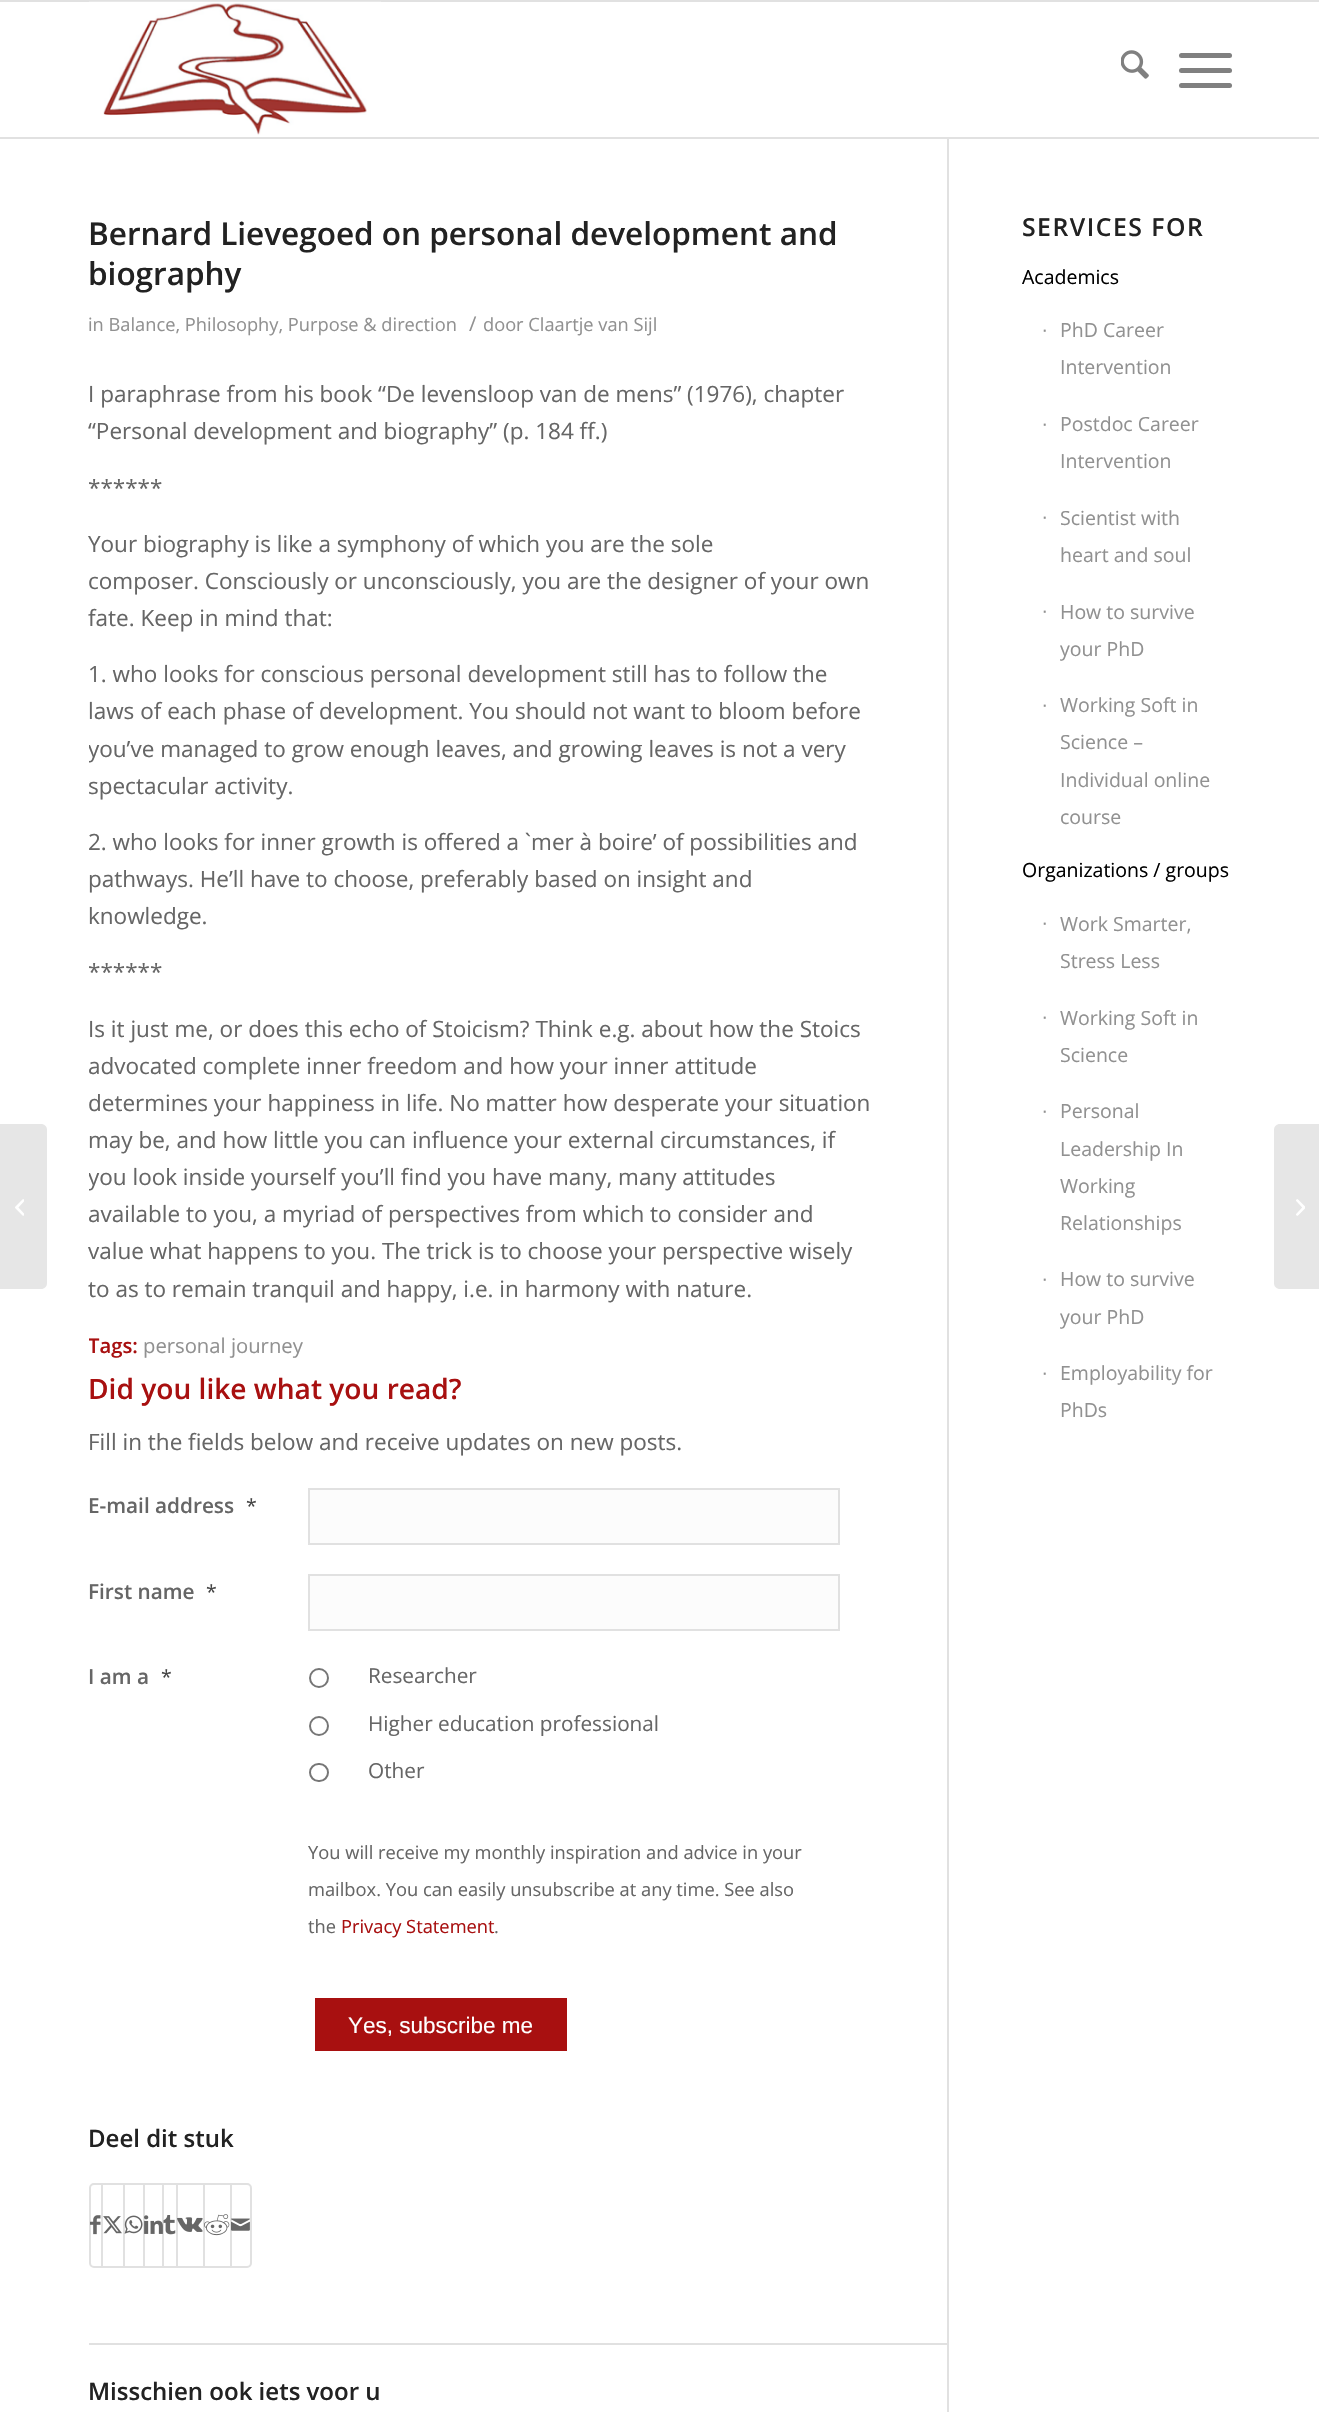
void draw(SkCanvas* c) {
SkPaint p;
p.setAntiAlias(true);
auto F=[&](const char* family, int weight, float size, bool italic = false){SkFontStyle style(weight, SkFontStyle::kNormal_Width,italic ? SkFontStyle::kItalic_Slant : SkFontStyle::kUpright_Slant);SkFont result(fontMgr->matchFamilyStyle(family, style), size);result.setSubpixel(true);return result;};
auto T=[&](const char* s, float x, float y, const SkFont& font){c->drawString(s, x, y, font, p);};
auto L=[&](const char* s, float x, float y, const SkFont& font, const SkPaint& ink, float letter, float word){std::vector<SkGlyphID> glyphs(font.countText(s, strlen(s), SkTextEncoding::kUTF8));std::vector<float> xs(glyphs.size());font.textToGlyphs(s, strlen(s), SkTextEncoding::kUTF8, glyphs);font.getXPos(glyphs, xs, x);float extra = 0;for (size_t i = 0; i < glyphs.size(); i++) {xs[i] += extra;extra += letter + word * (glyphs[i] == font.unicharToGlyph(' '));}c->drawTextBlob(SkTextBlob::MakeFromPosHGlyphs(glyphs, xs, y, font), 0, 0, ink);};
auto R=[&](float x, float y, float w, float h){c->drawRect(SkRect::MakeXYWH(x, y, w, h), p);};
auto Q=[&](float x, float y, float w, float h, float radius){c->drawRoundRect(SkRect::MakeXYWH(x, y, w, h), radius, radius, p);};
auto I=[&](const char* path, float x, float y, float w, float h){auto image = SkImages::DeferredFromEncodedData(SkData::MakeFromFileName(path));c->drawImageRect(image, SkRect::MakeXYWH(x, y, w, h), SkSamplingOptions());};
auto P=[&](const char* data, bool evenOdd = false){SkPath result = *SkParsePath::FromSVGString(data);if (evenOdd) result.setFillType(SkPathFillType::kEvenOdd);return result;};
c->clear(0xffffffff);
p.setColor(0xffe1e1e1);
R(0,0,1319,2);
R(947,138,2,2274);
R(0,137,1319,2);
I("1.png",89,1,292,134);
I("2.png",1121,50,28,29);
p.setColor(0xff808080);
Q(1179,68,53,5,2.5);
Q(1179,53,53,5,2.5);
Q(1179,83,53,5,2.5);
p.setColor(0xffe6e6e6);
c->drawPath(P("M0 1124h41c3.5 0 6 2.5 6 6v153c0 3.5-2.5 6-6 6h-41z"),p);
I("3.png",15,1199,9,17);
auto f1 = F("Open Sans",600,31.5);
p.setColor(0xff222222);
T("Bernard Lievegoed on personal development and",88,245,f1);
T("biography",88,285,f1);
auto f2 = F("Open Sans",400,18.25);
p.setColor(0xff919191);
T("in Balance, Philosophy, Purpose & direction",88,331,f2);
auto f3 = F("Open Sans",400,20.25);
T("/",469,331,f3);
T("door Claartje van Sijl",483,331,f2);
auto f4 = F("Open Sans",400,22.5);
p.setColor(0xff666666);
T("I paraphrase from his book “De levensloop van de mens” (1976), chapter",88,402,f4);
T("“Personal development and biography” (p. 184 ff.)",88,439,f4);
T("******",88,496,f4);
T("Your biography is like a symphony of which you are the sole",88,552,f4);
T("composer. Consciously or unconsciously, you are the designer of your own",88,589,f4);
T("fate. Keep in mind that:",88,626,f4);
T("1. who looks for conscious personal development still has to follow the",88,682,f4);
T("laws of each phase of development. You should not want to bloom before",88,719,f4);
c->save();
c->clipRect(SkRect::MakeXYWH(89,213,858,2130));
T("you’ve managed to grow enough leaves, and growing leaves is not a very",88,757,f4);
c->restore();
T("spectacular activity.",88,794,f4);
T("2. who looks for inner growth is offered a `mer à boire’ of possibilities and",88,850,f4);
T("pathways. He’ll have to choose, preferably based on insight and",88,887,f4);
T("knowledge.",88,924,f4);
T("******",88,980,f4);
T("Is it just me, or does this echo of Stoicism? Think e.g. about how the Stoics",88,1037,f4);
T("advocated complete inner freedom and how your inner attitude",88,1074,f4);
T("determines your happiness in life. No matter how desperate your situation",88,1111,f4);
T("may be, and how little you can influence your external circumstances, if",88,1148,f4);
c->save();
c->clipRect(SkRect::MakeXYWH(89,213,858,2130));
T("you look inside yourself you’ll find you have many, many attitudes",88,1185,f4);
c->restore();
T("available to you, a myriad of perspectives from which to consider and",88,1222,f4);
T("value what happens to you. The trick is to choose your perspective wisely",88,1259,f4);
T("to as to remain tranquil and happy, i.e. in harmony with nature.",88,1297,f4);
c->save();
c->clipRect(SkRect::MakeXYWH(89,213,858,2130));
auto f5 = F("Open Sans",600,20.25);
p.setColor(0xffa81010);
T("Tags:",88,1353,f5);
c->restore();
p.setColor(0xff919191);
T("personal journey",143,1353,f3);
auto f6 = F("Open Sans",600,28.1);
p.setColor(0xffa81010);
T("Did you like what you read?",88,1399,f6);
p.setColor(0xff666666);
T("Fill in the fields below and receive updates on new posts.",88,1450,f4);
auto f7 = F("Open Sans",600,20.75);
T("E-mail address",88,1513,f7);
auto f8 = F("Open Sans",400,19.5);
p.setColor(0xff444444);
T("*",246,1513,f8);
p.setColor(0xfffcfcfc);
c->drawRect(SkRect::MakeXYWH(309,1489,530,55),p);
p.setStroke(true);
p.setStrokeWidth(2);
p.setColor(0xffe1e1e1);
c->drawRect(SkRect::MakeXYWH(309,1489,530,55),p);
p.setStroke(false);
p.setColor(0xff666666);
T("First name",88,1599,f7);
p.setColor(0xff444444);
T("*",206,1599,f8);
p.setColor(0xfffcfcfc);
c->drawRect(SkRect::MakeXYWH(309,1575,530,55),p);
p.setStroke(true);
p.setColor(0xffe1e1e1);
c->drawRect(SkRect::MakeXYWH(309,1575,530,55),p);
p.setStroke(false);
p.setColor(0xff666666);
T("I am a",88,1684,f7);
p.setColor(0xff444444);
T("*",161,1684,f8);
p.setStroke(true);
p.setColor(0xff767676);
c->drawCircle(319,1678,9,p);
auto f9 = F("Open Sans",400,20.75);
p.setStroke(false);
p.setColor(0xff666666);
T("Researcher",368,1683,f9);
p.setStroke(true);
p.setColor(0xff767676);
c->drawCircle(319,1726,9,p);
p.setStroke(false);
p.setColor(0xff666666);
T("Higher education professional",368,1731,f9);
p.setStroke(true);
p.setColor(0xff767676);
c->drawRoundRect(SkRect::MakeXYWH(310,1764,18,17),8.5,8.5,p);
p.setStroke(false);
p.setColor(0xff666666);
T("Other",368,1778,f9);
auto f10 = F("Open Sans",400,18.3);
T("You will receive my monthly inspiration and advice in your",308,1859,f10);
T("mailbox. You can easily unsubscribe at any time. See also",308,1896,f10);
T("the",308,1933,f10);
p.setColor(0xffa81010);
T("Privacy Statement",341,1933,f10);
p.setColor(0xff666666);
T(".",494,1933,f10);
p.setColor(0xffa81010);
R(315,1998,252,53);
auto f11 = F("Liberation Sans",400,22.5);
p.setColor(0xffffffff);
T("Yes, subscribe me",348,2033,f11);
auto f12 = F("Open Sans",600,24);
p.setColor(0xff222222);
T("Deel dit stuk",88,2147,f12);
p.setStroke(true);
p.setColor(0xffe1e1e1);
c->drawRoundRect(SkRect::MakeXYWH(90,2184,161,83),4,4,p);
I("4.png",90,2215,11,20);
p.setStroke(false);
R(101,2184,2,83);
I("5.png",103,2216,19,18);
R(123,2184,2,83);
I("6.png",124,2215,19,19);
R(143,2184,2,83);
R(162,2184,2,83);
I("7.png",144,2215,19,19);
I("8.png",163,2215,13,20);
R(176,2184,2,83);
I("9.png",177,2217,26,15);
R(203,2184,2,83);
I("10.png",204,2214,26,22);
R(230,2184,2,83);
I("11.png",231,2218,19,13);
R(89,2343,858,2);
p.setColor(0xff222222);
T("Misschien ook iets voor u",88,2400,f12);
auto f13 = F("Open Sans",600,24.75);
L("SERVICES FOR",1022,236,f13,p,1.5,0);
p.setColor(0xff000000);
T("Academics",1022,284,f8);
auto f14 = F("Liberation Sans",400,19.5);
p.setColor(0xff919191);
T("∙",1042,336,f14);
T("PhD Career",1060,337,f8);
T("Intervention",1060,374,f8);
T("∙",1042,430,f14);
T("Postdoc Career",1060,431,f8);
T("Intervention",1060,468,f8);
T("∙",1042,523,f14);
T("Scientist with",1060,525,f8);
T("heart and soul",1060,562,f8);
T("∙",1042,617,f14);
T("How to survive",1060,619,f8);
T("your PhD",1060,656,f8);
T("∙",1042,711,f14);
T("Working Soft in",1060,712,f8);
T("Science –",1060,749,f8);
T("Individual online",1060,787,f8);
T("course",1060,824,f8);
p.setColor(0xff000000);
T("Organizations / groups",1022,877,f8);
p.setColor(0xff919191);
T("∙",1042,929,f14);
T("Work Smarter,",1060,931,f8);
T("Stress Less",1060,968,f8);
T("∙",1042,1023,f14);
T("Working Soft in",1060,1025,f8);
T("Science",1060,1062,f8);
T("∙",1042,1117,f14);
T("Personal",1060,1118,f8);
T("Leadership In",1060,1156,f8);
T("Working",1060,1193,f8);
T("Relationships",1060,1230,f8);
T("∙",1042,1285,f14);
T("How to survive",1060,1286,f8);
T("your PhD",1060,1324,f8);
T("∙",1042,1379,f14);
T("Employability for",1060,1380,f8);
T("PhDs",1060,1417,f8);
p.setColor(0xffe6e6e6);
c->drawPath(P("M1280 1124h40v165h-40c-3.5 0-6-2.5-6-6v-153c0-3.5 2.5-6 6-6z"),p);
I("12.png",1296,1199,9,17);
}
